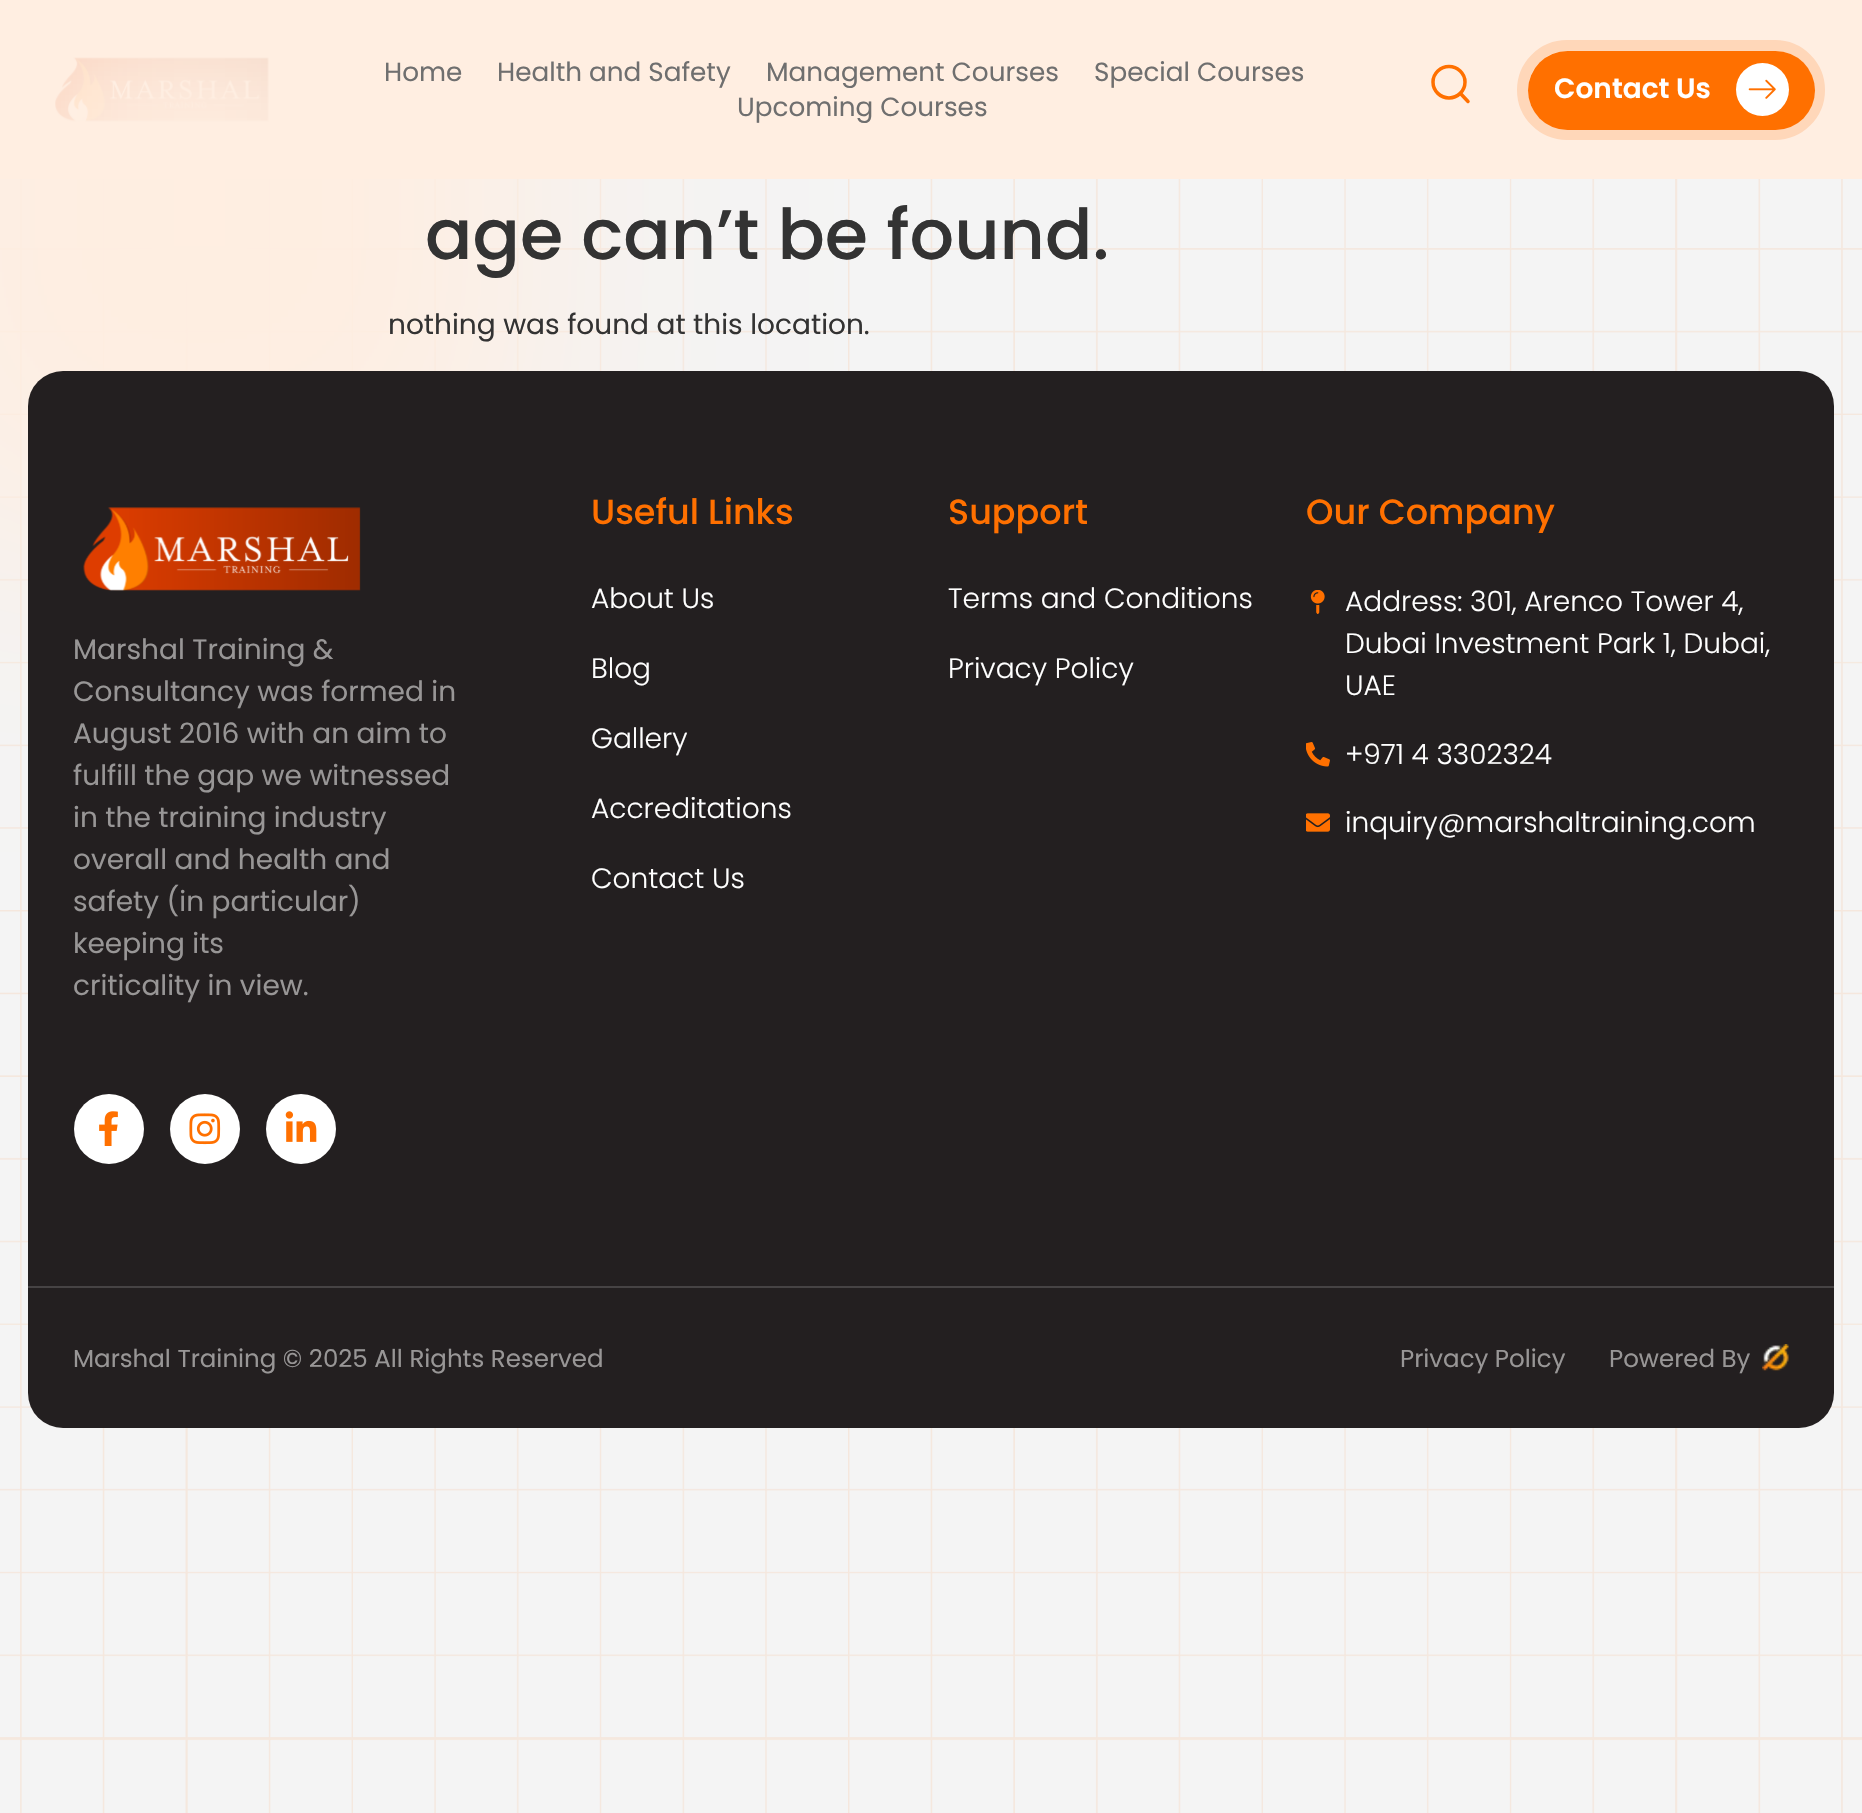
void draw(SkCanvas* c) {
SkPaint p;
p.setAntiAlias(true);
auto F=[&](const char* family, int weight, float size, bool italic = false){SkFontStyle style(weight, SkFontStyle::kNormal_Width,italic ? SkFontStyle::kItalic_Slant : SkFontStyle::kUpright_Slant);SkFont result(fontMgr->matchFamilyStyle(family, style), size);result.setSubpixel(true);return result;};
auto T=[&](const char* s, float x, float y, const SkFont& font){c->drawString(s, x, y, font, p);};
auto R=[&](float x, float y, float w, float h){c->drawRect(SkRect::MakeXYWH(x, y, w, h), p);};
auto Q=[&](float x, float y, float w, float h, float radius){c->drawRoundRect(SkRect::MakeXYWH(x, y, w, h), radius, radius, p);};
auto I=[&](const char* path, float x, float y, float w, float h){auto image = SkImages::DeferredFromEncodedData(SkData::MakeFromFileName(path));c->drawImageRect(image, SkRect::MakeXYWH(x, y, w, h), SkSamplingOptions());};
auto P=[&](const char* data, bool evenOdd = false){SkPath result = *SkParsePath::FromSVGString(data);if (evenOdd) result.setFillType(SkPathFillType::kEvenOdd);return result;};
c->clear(0xfff4f4f4);
I("1.png",0,179,1862,1634);
p.setColor(0xffffeee1);
R(0,0,1862,179);
I("2.png",55,57,214,65);
p.setMaskFilter(SkMaskFilter::MakeBlur(kNormal_SkBlurStyle, 175));
c->drawRect(SkRect::MakeXYWH(-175,-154,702,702),p);
p.setMaskFilter(nullptr);
auto f1 = F("Poppins",400,26.25);
p.setColor(0xff6f6f6f);
T("Home",384,81,f1);
T("Health and Safety",497,81,f1);
T("Management Courses",766,81,f1);
T("Special Courses",1094,81,f1);
T("Upcoming Courses",737,116,f1);
p.setStroke(true);
p.setStrokeWidth(3.5);
p.setStrokeCap(SkPaint::kRound_Cap);
p.setStrokeJoin(SkPaint::kRound_Join);
p.setColor(0xffff7000);
c->drawPath(P("M1460.5 93.5l7.5 8"),p);
p.setStrokeCap(SkPaint::kButt_Cap);
c->drawPath(P("M1465 82c0-8.5-7.5-15.5-16-15.5c-8.5 0-16 7-16 15.5c0 9 7.5 16 16 16c8.5 0 16-7 16-16z"),p);
p.setStrokeWidth(11);
p.setStrokeJoin(SkPaint::kMiter_Join);
p.setColor(0xffffd7b9);
c->drawRoundRect(SkRect::MakeXYWH(1522.5,45.5,297,89),44.5,44.5,p);
p.setStroke(false);
p.setColor(0xffff7000);
Q(1528,51,287,79,39.5);
auto f2 = F("Poppins",600,28);
p.setColor(0xffffffff);
T("Contact Us",1554,98,f2);
c->drawCircle(1762.5,89.5,26.5,p);
I("3.png",1748,79,28,20);
auto f3 = F("Poppins",500,70);
p.setColor(0xff333333);
T("age can’t be found.",425,259,f3);
auto f4 = F("Poppins",400,28);
T("nothing was found at this location.",388,334,f4);
p.setColor(0xff231f20);
Q(28,371,1806,1057,35);
I("4.png",83,507,278,84);
p.setColor(0xff989696);
T("Marshal Training &",73,659,f4);
T("Consultancy was formed in",73,701,f4);
T("August 2016 with an aim to",73,743,f4);
T("fulfill the gap we witnessed",73,785,f4);
T("in the training industry",73,827,f4);
T("overall and health and",73,869,f4);
T("safety (in particular)",73,911,f4);
T("keeping its",73,953,f4);
T("criticality in view.",73,995,f4);
p.setColor(0xffffffff);
c->drawCircle(109,1129,35,p);
I("5.png",99,1111,19,35);
c->drawCircle(205,1129,35,p);
I("6.png",189,1113,32,32);
c->drawCircle(301,1129,35,p);
I("7.png",285,1111,32,31);
auto f5 = F("Poppins",500,35);
p.setColor(0xffff7000);
T("Useful Links",591,524,f5);
auto f6 = F("Poppins",300,28);
p.setColor(0xffffffff);
T("About Us",591,608,f6);
T("Blog",591,678,f6);
T("Gallery",591,748,f6);
T("Accreditations",591,818,f6);
T("Contact Us",591,888,f6);
p.setColor(0xffff7000);
T("Support",948,524,f5);
p.setColor(0xffffffff);
T("Terms and Conditions",948,608,f6);
T("Privacy Policy",948,678,f6);
p.setColor(0xffff7000);
T("Our Company",1306,524,f5);
I("8.png",1310,590,15,24);
p.setColor(0xffffffff);
T("Address: 301, Arenco Tower 4,",1345,611,f6);
T("Dubai Investment Park 1, Dubai,",1345,653,f6);
T("UAE",1345,695,f6);
I("9.png",1306,742,24,25);
T("+971 4 3302324",1345,764,f6);
I("10.png",1306,813,24,19);
T("inquiry@marshaltraining.com",1345,832,f6);
p.setColor(0xff464344);
R(28,1286,1806,2);
auto f7 = F("Poppins",400,24.5);
p.setColor(0xff989696);
T("Marshal Training © 2025 All Rights Reserved",73,1367,f7);
T("Privacy Policy",1400,1367,f7);
T("Powered By",1609,1367,f7);
I("11.png",1762,1344,27,27);
}
